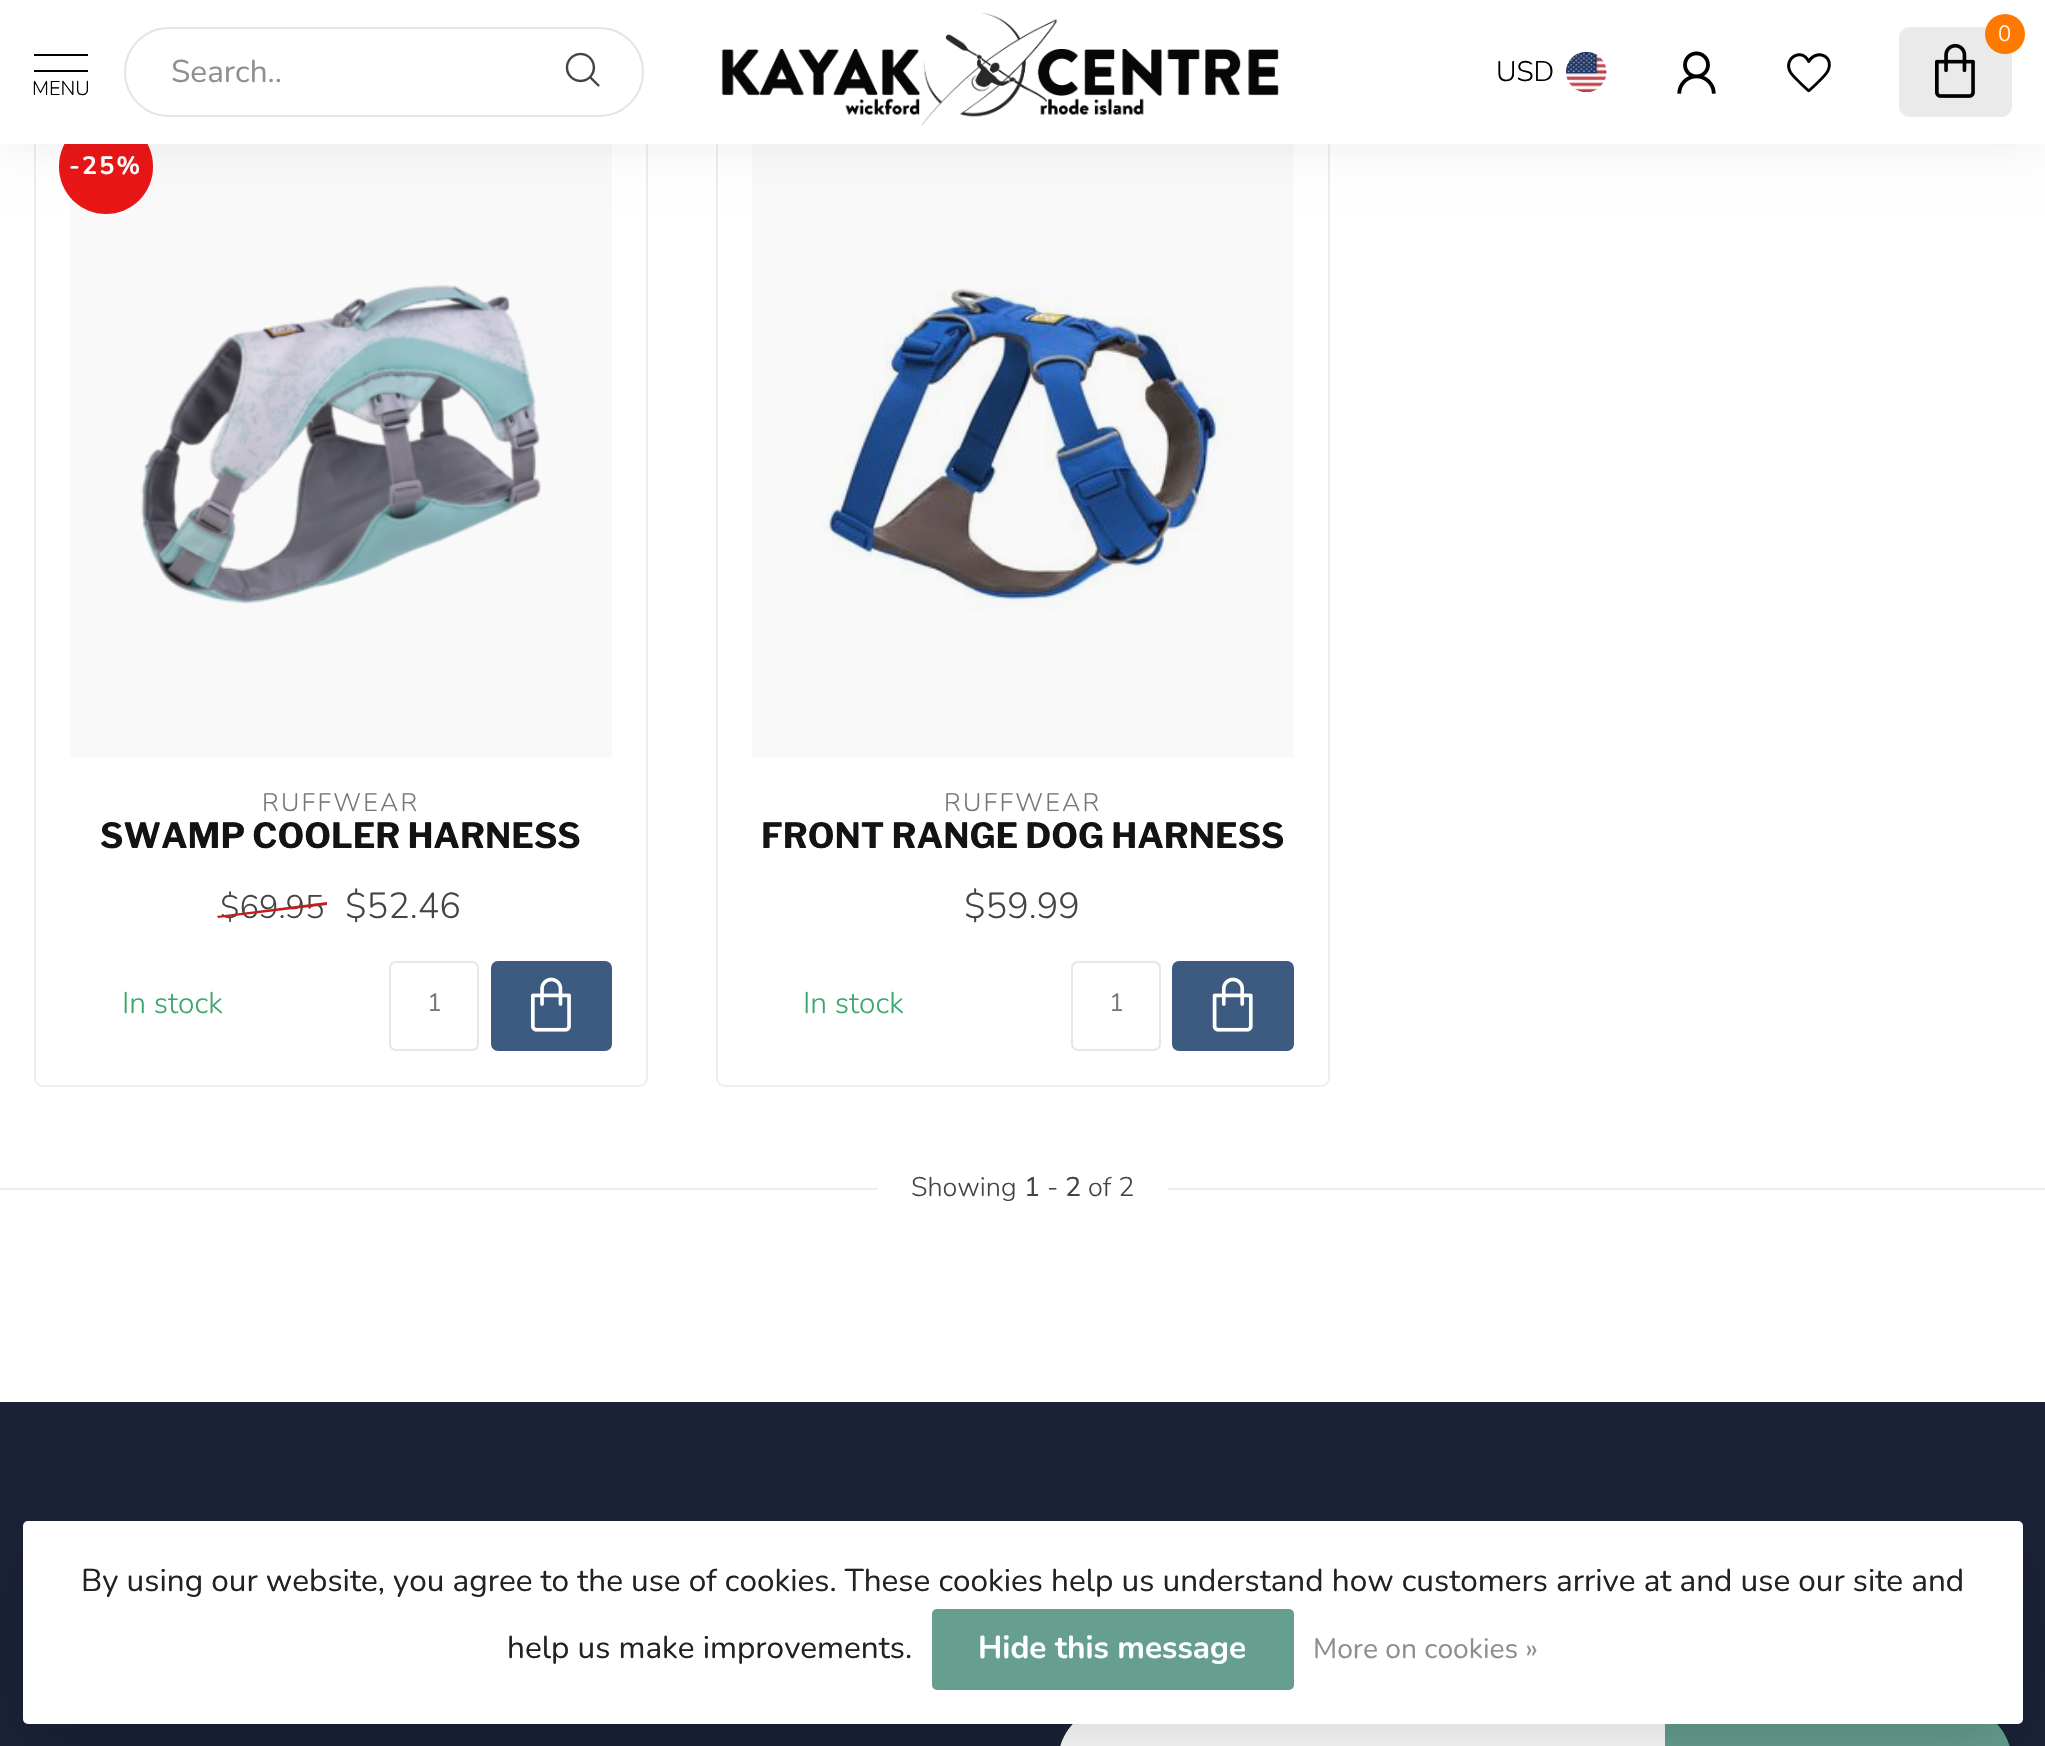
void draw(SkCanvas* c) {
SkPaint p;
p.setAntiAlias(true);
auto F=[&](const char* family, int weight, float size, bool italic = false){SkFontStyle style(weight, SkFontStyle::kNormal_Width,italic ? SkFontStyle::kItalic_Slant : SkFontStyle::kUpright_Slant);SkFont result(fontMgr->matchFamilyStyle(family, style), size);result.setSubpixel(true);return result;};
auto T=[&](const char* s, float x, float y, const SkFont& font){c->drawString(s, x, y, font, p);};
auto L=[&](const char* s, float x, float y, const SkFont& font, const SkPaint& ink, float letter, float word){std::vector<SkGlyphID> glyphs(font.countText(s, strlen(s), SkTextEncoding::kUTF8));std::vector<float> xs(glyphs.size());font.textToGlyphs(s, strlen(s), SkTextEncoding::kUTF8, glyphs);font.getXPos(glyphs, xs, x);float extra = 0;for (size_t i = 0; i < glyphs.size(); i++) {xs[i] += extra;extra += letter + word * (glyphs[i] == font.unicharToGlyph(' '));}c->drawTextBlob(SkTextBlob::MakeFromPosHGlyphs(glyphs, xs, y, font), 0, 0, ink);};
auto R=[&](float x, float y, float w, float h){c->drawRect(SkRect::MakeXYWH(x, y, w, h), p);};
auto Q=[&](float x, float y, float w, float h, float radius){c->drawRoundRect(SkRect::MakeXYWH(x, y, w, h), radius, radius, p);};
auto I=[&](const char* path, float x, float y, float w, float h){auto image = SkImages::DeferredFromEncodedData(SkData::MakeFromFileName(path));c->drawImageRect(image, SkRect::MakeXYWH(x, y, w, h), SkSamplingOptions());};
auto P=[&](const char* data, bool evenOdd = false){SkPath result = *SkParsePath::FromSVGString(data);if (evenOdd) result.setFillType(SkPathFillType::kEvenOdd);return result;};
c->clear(0xffffffff);
p.setStroke(true);
p.setStrokeWidth(2);
p.setColor(0xffeeeeee);
c->drawRoundRect(SkRect::MakeXYWH(35,96,612,990),8,8,p);
p.setStroke(false);
p.setColor(0xfff9f9f9);
R(70,144,542,614);
p.setColor(0xffe91617);
Q(59,119,94,95,47);
p.setStroke(true);
p.setColor(0xffeeeeee);
c->drawRoundRect(SkRect::MakeXYWH(717,96,612,990),8,8,p);
p.setStroke(false);
p.setColor(0xfff9f9f9);
R(752,144,542,614);
p.setColor(0x12000000);
p.setMaskFilter(SkMaskFilter::MakeBlur(kNormal_SkBlurStyle, 22.5));
c->drawRect(SkRect::MakeXYWH(0,-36,2045,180),p);
p.setMaskFilter(nullptr);
p.setColor(0xffffffff);
R(0,0,2045,144);
p.setStroke(true);
p.setColor(0xffe5e5e5);
c->drawRoundRect(SkRect::MakeXYWH(125,28,518,88),44,44,p);
auto f1 = F("Nunito",400,31.5);
p.setStroke(false);
p.setColor(0xff8f8f8f);
T("Search..",171,82,f1);
I("1.png",565,52,35,35);
p.setColor(0xff000000);
R(34,54,54,2);
R(34,70,54,2);
auto f2 = F("Nunito",300,20);
T("MENU",32,95,f2);
I("2.png",721,13,558,113);
p.setColor(0xffeaeaea);
Q(1899,27,113,90,11);
p.setColor(0xffff7900);
c->drawCircle(2005,34,20,p);
auto f3 = F("Nunito",300,22);
p.setColor(0xffffffff);
T("0",1998,41,f3);
I("3.png",1935,43,40,55);
auto f4 = F("Nunito",300,28.25);
p.setColor(0xff000000);
T("USD",1496,81,f4);
I("4.png",1566,51,41,42);
I("5.png",1677,51,39,43);
I("6.png",1787,53,44,40);
I("7.png",141,285,400,319);
auto f5 = F("Nunito",700,25);
p.setColor(0xffffffff);
L("-25%",69,174,f5,p,2.25,0);
auto f6 = F("Nunito",300,25.25);
p.setColor(0xff777777);
L("RUFFWEAR",262,811,f6,p,2.25,0);
auto f7 = F("Libre Franklin",700,34.6);
p.setColor(0xff131313);
T("SWAMP COOLER HARNESS",100,848,f7);
auto f8 = F("Nunito",300,32.5);
p.setColor(0xff444444);
T("$69.95",220,918,f8);
p.setColor(0xffc31e1e);
c->drawPath(P("M217 916l110-14v3l-109 13z"),p);
auto f9 = F("Nunito",300,36);
p.setColor(0xff444444);
T("$52.46",345,918,f9);
auto f10 = F("Nunito",300,30);
p.setColor(0xff3ca76b);
T("In stock",122,1013,f10);
p.setStroke(true);
p.setColor(0xffe7e7e7);
c->drawRoundRect(SkRect::MakeXYWH(390,962,88,88),6,6,p);
auto f11 = F("Nunito",400,25);
p.setStroke(false);
p.setColor(0xff777777);
T("1",427,1011,f11);
p.setColor(0xff3d5a80);
Q(491,961,121,90,7);
I("8.png",531,977,40,55);
I("9.png",820,288,412,324);
p.setColor(0xff777777);
L("RUFFWEAR",944,811,f6,p,2.25,0);
p.setColor(0xff131313);
T("FRONT RANGE DOG HARNESS",761,848,f7);
p.setColor(0xff444444);
T("$59.99",964,918,f9);
p.setColor(0xff3ca76b);
T("In stock",803,1013,f10);
p.setStroke(true);
p.setColor(0xffe7e7e7);
c->drawRoundRect(SkRect::MakeXYWH(1072,962,88,88),6,6,p);
p.setStroke(false);
p.setColor(0xff777777);
T("1",1109,1011,f11);
p.setColor(0xff3d5a80);
Q(1172,961,122,90,7);
I("10.png",1212,977,41,55);
p.setColor(0xffeeeeee);
R(0,1188,2045,2);
p.setColor(0xffffffff);
R(878,1188,290,2);
auto f12 = F("Nunito",300,27);
p.setColor(0xff444444);
T("Showing",911,1196,f12);
auto f13 = F("Nunito",400,27);
T("1",1024,1196,f13);
T("2",1065,1196,f13);
T("of 2",1088,1196,f12);
T("-",1047,1196,f12);
p.setColor(0xff1a2237);
R(0,1402,2045,344);
p.setColor(0xffffffff);
c->drawPath(P("M1114 1706h551v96h-551c-31 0-56-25-56-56v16c0-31 25-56 56-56z"),p);
p.setColor(0xff669f91);
c->drawPath(P("M1665 1706h291c31 0 56 25 56 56v-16c0 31-25 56-56 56h-291z"),p);
p.setColor(0x26000000);
p.setMaskFilter(SkMaskFilter::MakeBlur(kNormal_SkBlurStyle, 34));
c->drawRoundRect(SkRect::MakeXYWH(23,1544,2000,202),5,5,p);
p.setMaskFilter(nullptr);
p.setColor(0xffffffff);
Q(23,1521,2000,203,5);
p.setColor(0xff222222);
T("By using our website, you agree to the use of cookies. These cookies help us understand how customers arrive at and use our site and",81,1591,f1);
T("help us make improvements.",507,1658,f1);
p.setColor(0xff669f90);
Q(932,1609,362,81,5);
auto f14 = F("Nunito",700,31.5);
p.setColor(0xffffffff);
T("Hide this message",978,1658,f14);
auto f15 = F("Nunito",400,28.25);
p.setColor(0xff8f8f8f);
T("More on cookies »",1313,1658,f15);
}
